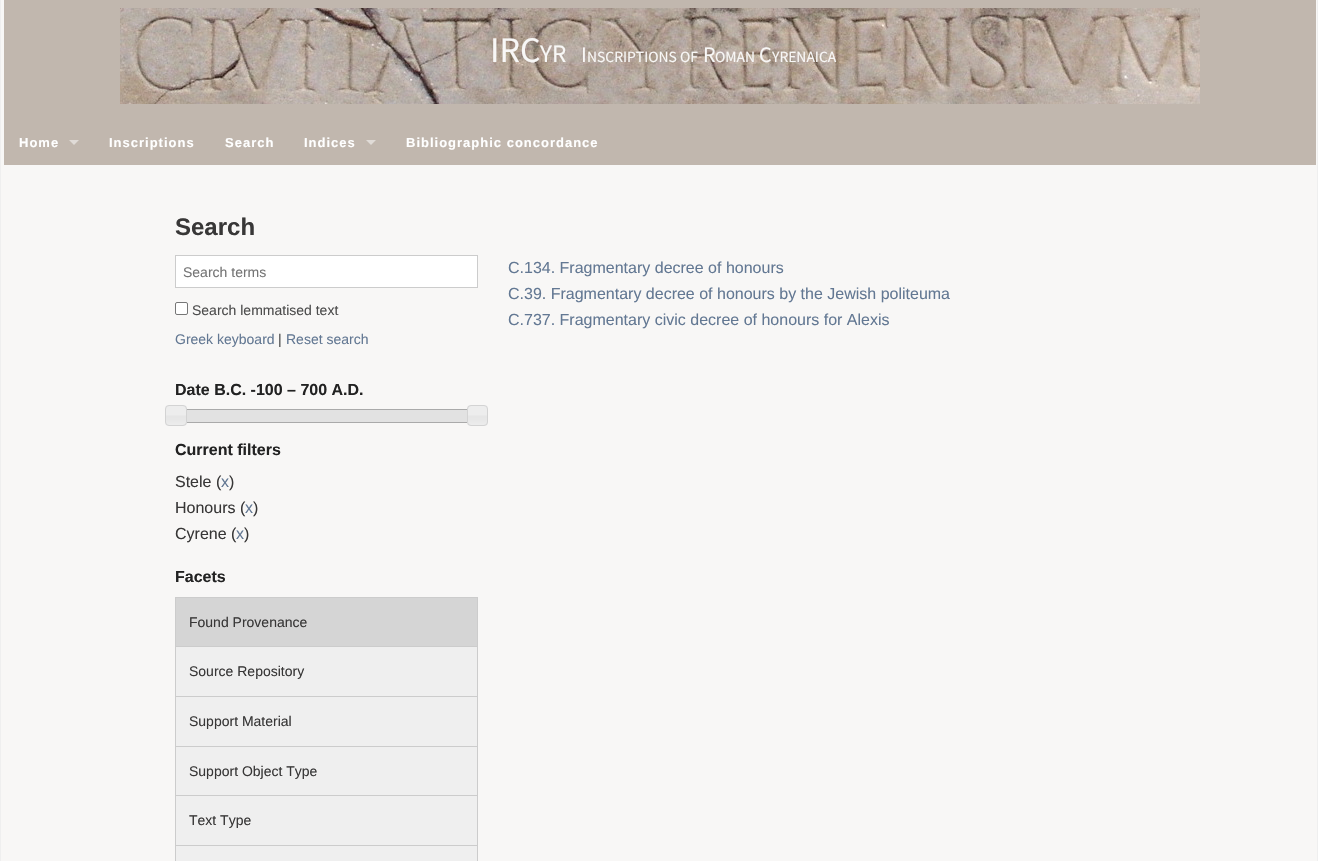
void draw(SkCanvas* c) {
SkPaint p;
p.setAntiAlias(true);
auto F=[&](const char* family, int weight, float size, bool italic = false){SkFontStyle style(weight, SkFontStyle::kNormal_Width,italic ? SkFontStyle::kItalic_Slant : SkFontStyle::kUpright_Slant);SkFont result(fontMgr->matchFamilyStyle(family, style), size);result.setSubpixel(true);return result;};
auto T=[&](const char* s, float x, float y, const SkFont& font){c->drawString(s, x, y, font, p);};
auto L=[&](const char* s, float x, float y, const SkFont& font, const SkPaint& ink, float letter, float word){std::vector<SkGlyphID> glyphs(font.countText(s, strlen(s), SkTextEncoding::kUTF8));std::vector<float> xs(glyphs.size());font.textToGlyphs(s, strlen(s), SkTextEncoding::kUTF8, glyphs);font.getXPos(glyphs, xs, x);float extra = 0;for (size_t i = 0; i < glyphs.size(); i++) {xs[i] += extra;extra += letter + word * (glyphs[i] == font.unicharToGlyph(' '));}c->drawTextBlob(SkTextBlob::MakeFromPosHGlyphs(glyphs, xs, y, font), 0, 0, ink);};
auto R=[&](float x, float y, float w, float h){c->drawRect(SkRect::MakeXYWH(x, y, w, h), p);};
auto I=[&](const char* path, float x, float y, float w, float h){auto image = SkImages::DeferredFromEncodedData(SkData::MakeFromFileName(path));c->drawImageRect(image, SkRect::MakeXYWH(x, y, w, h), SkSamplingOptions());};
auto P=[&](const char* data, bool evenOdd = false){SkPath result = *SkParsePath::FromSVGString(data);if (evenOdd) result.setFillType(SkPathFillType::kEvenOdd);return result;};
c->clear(0xfff8f7f6);
p.setStroke(true);
p.setStrokeWidth(1);
p.setColor(0xffefefef);
c->drawRect(SkRect::MakeXYWH(.5,-.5,1317,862),p);
p.setStroke(false);
p.setColor(0xffc1b7ae);
R(4,0,1312,120);
I("1.png",120,8,1080,96);
auto f1 = F("Source Sans Pro",400,36);
p.setColor(0xfff8f7f6);
T("IRC",490,62,f1);
auto f2 = F("Source Sans Pro",400,25);
T("YR",540,62,f2);
auto f3 = F("Source Sans Pro",400,22);
T("I",581,62,f3);
auto f4 = F("Source Sans Pro",400,15.5);
T("NSCRIPTIONS",587,62,f4);
T("OF",680,62,f4);
T("R",703,62,f3);
T("OMAN",715,62,f4);
T("C",759,62,f3);
T("YRENAICA",772,62,f4);
p.setColor(0xffc1b7ae);
R(391,120,925,45);
R(4,120,387,45);
auto f5 = F("Liberation Sans",700,13);
p.setColor(0xffffffff);
L("Home",19,147,f5,p,1,0);
p.setColor(0xffe0dbd7);
c->drawPath(P("M69 140h10l-5 5z"),p);
p.setColor(0xffffffff);
L("Inscriptions",109,147,f5,p,1,0);
L("Search",225,147,f5,p,1,0);
L("Indices",304,147,f5,p,1,0);
p.setColor(0xffe0dbd7);
c->drawPath(P("M366 140h10l-5 5z"),p);
p.setColor(0xffffffff);
L("Bibliographic concordance",406,147,f5,p,1,0);
auto f6 = F("Liberation Sans",700,24);
p.setColor(0xff383737);
T("Search",175,235,f6);
p.setColor(0xffffffff);
c->drawRect(SkRect::MakeXYWH(175.5,255.5,302,32),p);
p.setStroke(true);
p.setColor(0xffcccccc);
c->drawRect(SkRect::MakeXYWH(175.5,255.5,302,32),p);
auto f7 = F("Liberation Sans",400,14);
p.setStroke(false);
p.setColor(0xff757575);
T("Search terms",183,277,f7);
p.setColor(0xffffffff);
c->drawRoundRect(SkRect::MakeXYWH(175.5,302.5,12,12),1.5,1.5,p);
p.setStroke(true);
p.setColor(0xff767676);
c->drawRoundRect(SkRect::MakeXYWH(175.5,302.5,12,12),1.5,1.5,p);
p.setStroke(false);
p.setColor(0xff4d4d4d);
T("Search lemmatised text",192,315,f7);
p.setColor(0xff637893);
T("Greek keyboard",175,344,f7);
p.setColor(0xff4d4d4d);
T("|",278,344,f7);
p.setColor(0xff637893);
T("Reset search",286,344,f7);
auto f8 = F("Liberation Sans",700,16);
p.setColor(0xff222222);
T("Date B.C. -100 – 700 A.D.",175,395,f8);
p.setStroke(true);
p.setColor(0xffaaaaaa);
c->drawRect(SkRect::MakeXYWH(175.5,409.5,302,13),p);
I("2.png",165,405,22,21);
p.setColor(0xffd3d3d3);
c->drawRoundRect(SkRect::MakeXYWH(165.5,405.5,21,20),3.5,3.5,p);
p.setStroke(false);
p.setColor(0xffe2e2e2);
R(187,410,280,12);
I("3.png",467,405,21,21);
p.setStroke(true);
p.setColor(0xffd3d3d3);
c->drawRoundRect(SkRect::MakeXYWH(467.5,405.5,20,20),3.5,3.5,p);
p.setStroke(false);
p.setColor(0xff222222);
T("Current filters",175,455,f8);
auto f9 = F("Liberation Sans",400,16);
p.setColor(0xff383737);
T("Stele (",175,487,f9);
p.setColor(0xff637893);
T("x",221,487,f9);
p.setColor(0xff383737);
T(")",229,487,f9);
T("Honours (",175,513,f9);
p.setColor(0xff637893);
T("x",245,513,f9);
p.setColor(0xff383737);
T(")",253,513,f9);
T("Cyrene (",175,539,f9);
p.setColor(0xff637893);
T("x",236,539,f9);
p.setColor(0xff383737);
T(")",244,539,f9);
p.setColor(0xff222222);
T("Facets",175,582,f8);
p.setColor(0xffcccccc);
R(175,597,303,1);
p.setColor(0xffd5d5d5);
R(176,598,301,48);
p.setColor(0xffcccccc);
R(477,598,1,263);
R(175,646,303,1);
R(175,598,1,49);
p.setColor(0xff383737);
T("Found Provenance",189,627,f7);
p.setColor(0xffefefef);
R(176,647,301,49);
p.setColor(0xffcccccc);
R(175,696,303,1);
R(175,647,1,50);
p.setColor(0xff383737);
T("Source Repository",189,676,f7);
p.setColor(0xffefefef);
R(176,697,301,49);
p.setColor(0xffcccccc);
R(175,746,303,1);
R(175,697,1,50);
p.setColor(0xff383737);
T("Support Material",189,726,f7);
p.setColor(0xffefefef);
R(176,747,301,48);
p.setColor(0xffcccccc);
R(175,795,303,1);
R(175,747,1,49);
p.setColor(0xff383737);
T("Support Object Type",189,776,f7);
p.setColor(0xffefefef);
R(176,796,301,49);
p.setColor(0xffcccccc);
R(175,845,303,1);
R(175,796,1,65);
p.setColor(0xff383737);
T("Text Type",189,825,f7);
p.setColor(0xffefefef);
R(176,846,301,15);
p.setColor(0xff637893);
T("C.134. Fragmentary decree of honours",508,273,f9);
T("C.39. Fragmentary decree of honours by the Jewish politeuma",508,299,f9);
T("C.737. Fragmentary civic decree of honours for Alexis",508,325,f9);
}
